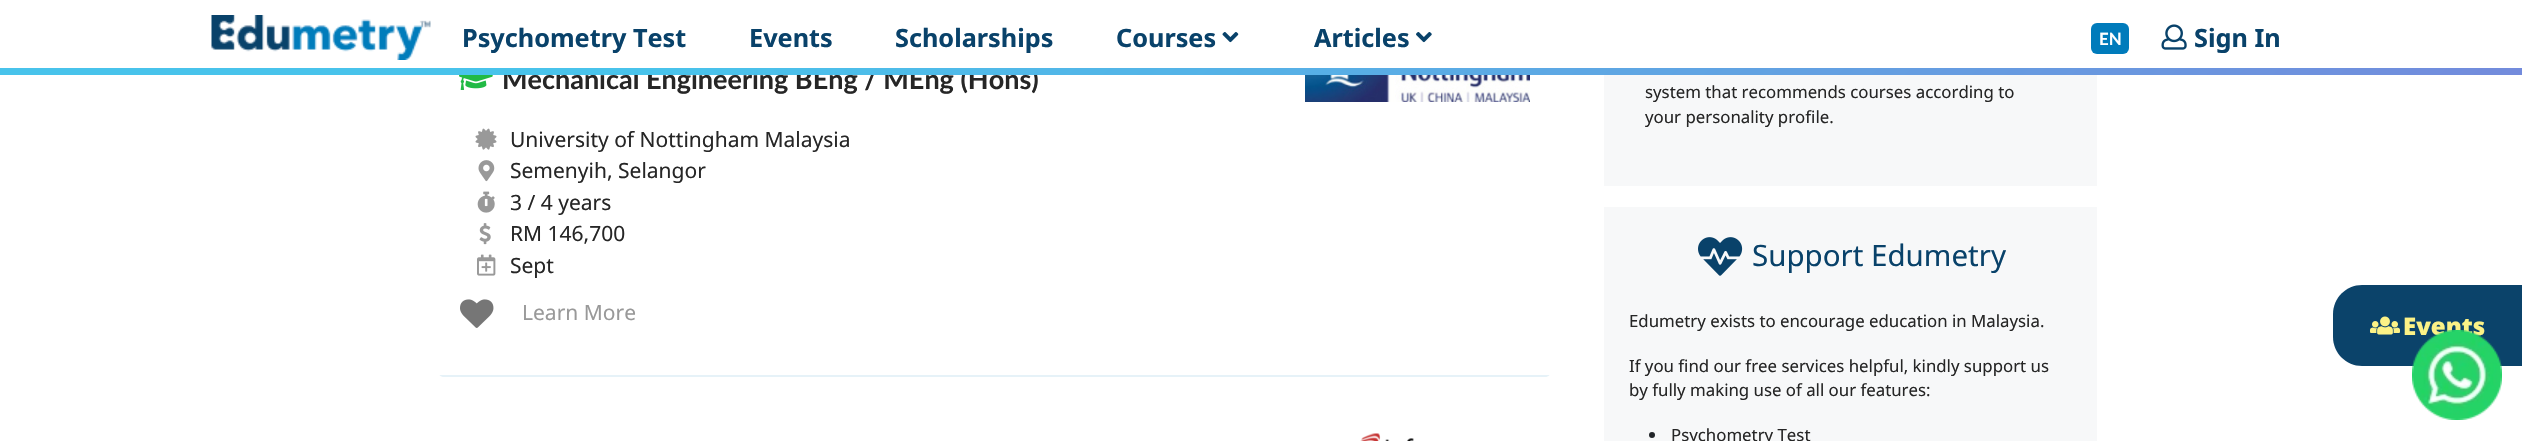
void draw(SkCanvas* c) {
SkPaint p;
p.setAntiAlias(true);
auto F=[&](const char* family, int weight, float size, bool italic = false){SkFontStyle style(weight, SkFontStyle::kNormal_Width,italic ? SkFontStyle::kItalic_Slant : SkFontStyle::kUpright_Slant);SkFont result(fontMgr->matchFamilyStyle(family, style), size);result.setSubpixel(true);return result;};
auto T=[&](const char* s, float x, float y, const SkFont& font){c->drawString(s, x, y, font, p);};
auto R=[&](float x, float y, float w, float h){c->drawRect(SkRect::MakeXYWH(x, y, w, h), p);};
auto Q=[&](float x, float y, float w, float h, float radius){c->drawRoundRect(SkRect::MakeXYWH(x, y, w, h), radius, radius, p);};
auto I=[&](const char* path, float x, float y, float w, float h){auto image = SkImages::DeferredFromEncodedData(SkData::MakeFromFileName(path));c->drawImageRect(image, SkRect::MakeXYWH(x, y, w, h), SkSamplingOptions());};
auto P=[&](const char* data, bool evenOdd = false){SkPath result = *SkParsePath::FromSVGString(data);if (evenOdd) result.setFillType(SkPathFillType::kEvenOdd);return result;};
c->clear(0xffffffff);
auto f1 = F("Lato",700,27);
p.setColor(0xff262626);
T("Mechanical Engineering BEng / MEng (Hons)",502,89,f1);
p.setColor(0xffffffff);
R(965,67,69,1);
I("1.png",211,15,220,45);
auto f2 = F("Noto Sans",700,25.25);
p.setColor(0xff09426a);
T("Psychometry Test",462,47,f2);
T("Events",749,47,f2);
T("Scholarships",895,47,f2);
T("Courses",1116,47,f2);
I("2.png",1222,32,17,11);
T("Articles",1314,47,f2);
I("3.png",1416,32,16,11);
p.setColor(0xff007bbb);
Q(2091,23,38,31,6);
auto f3 = F("Lato",700,16.8);
p.setColor(0xffffffff);
T("EN",2099,45,f3);
I("4.png",2161,24,26,26);
p.setColor(0xff09426a);
T("Sign In",2194,47,f2);
{
const SkColor colors[] = {0xff738bdc,0xff48c3eb};
const float stops[] = {0,.74};
const SkPoint ends[] = {{1894,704}, {629,-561}};
p.setShader(SkGradientShader::MakeLinear(ends, colors, stops, 2, SkTileMode::kClamp));
p.setAlpha(255);
}
R(0,68,2522,7);
I("5.png",459,75,34,15);
I("6.png",1305,75,225,27);
I("7.png",475,128,22,22);
auto f4 = F("Noto Sans",400,21);
p.setShader(nullptr);
p.setColor(0xff262626);
T("University of Nottingham Malaysia",510,147,f4);
I("8.png",478,160,17,22);
T("Semenyih, Selangor",510,178,f4);
I("9.png",477,191,18,22);
T("3 / 4 years",510,210,f4);
I("10.png",479,223,12,22);
T("RM 146,700",510,241,f4);
I("11.png",477,254,19,22);
T("Sept",510,273,f4);
c->save();
c->clipPath(P("M444-3h1101c3.5 0 6 2.5 6 6v368c0 3.5-2.5 6-6 6h-1101c-3.5 0-6-2.5-6-6v-368c0-3.5 2.5-6 6-6z"),true);
p.setColor(0xffe6f2f8);
R(438,375,1113,2);
c->restore();
I("12.png",460,299,34,29);
p.setColor(0xff999999);
T("Learn More",522,320,f4);
I("13.png",1360,433,54,8);
p.setColor(0xfff7f8f9);
R(1604,75,493,111);
auto f5 = F("Noto Sans",400,16.8);
p.setColor(0xff262626);
T("system that recommends courses according to",1645,98,f5);
T("your personality profile.",1645,123,f5);
p.setColor(0xfff7f8f9);
R(1604,207,493,234);
I("14.png",1698,237,45,39);
auto f6 = F("Noto Sans",400,29.5);
p.setColor(0xff09426a);
T("Support Edumetry",1752,266,f6);
p.setColor(0xff262626);
T("Edumetry exists to encourage education in Malaysia.",1629,327,f5);
T("If you find our free services helpful, kindly support us",1629,372,f5);
T("by fully making use of all our features:",1629,396,f5);
p.setColor(0xff212529);
c->drawCircle(1652,435,3,p);
p.setColor(0xff262626);
T("Psychometry Test",1671,441,f5);
p.setColor(0xff0b436a);
c->drawPath(P("M2362 285h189v81h-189c-16 0-29-13-29-29v-23c0-16 13-29 29-29z"),p);
I("15.png",2370,316,30,19);
auto f7 = F("Noto Sans",900,24);
p.setColor(0xfffcf286);
T("Events",2403,335,f7);
I("16.png",2412,330,90,90);
}
